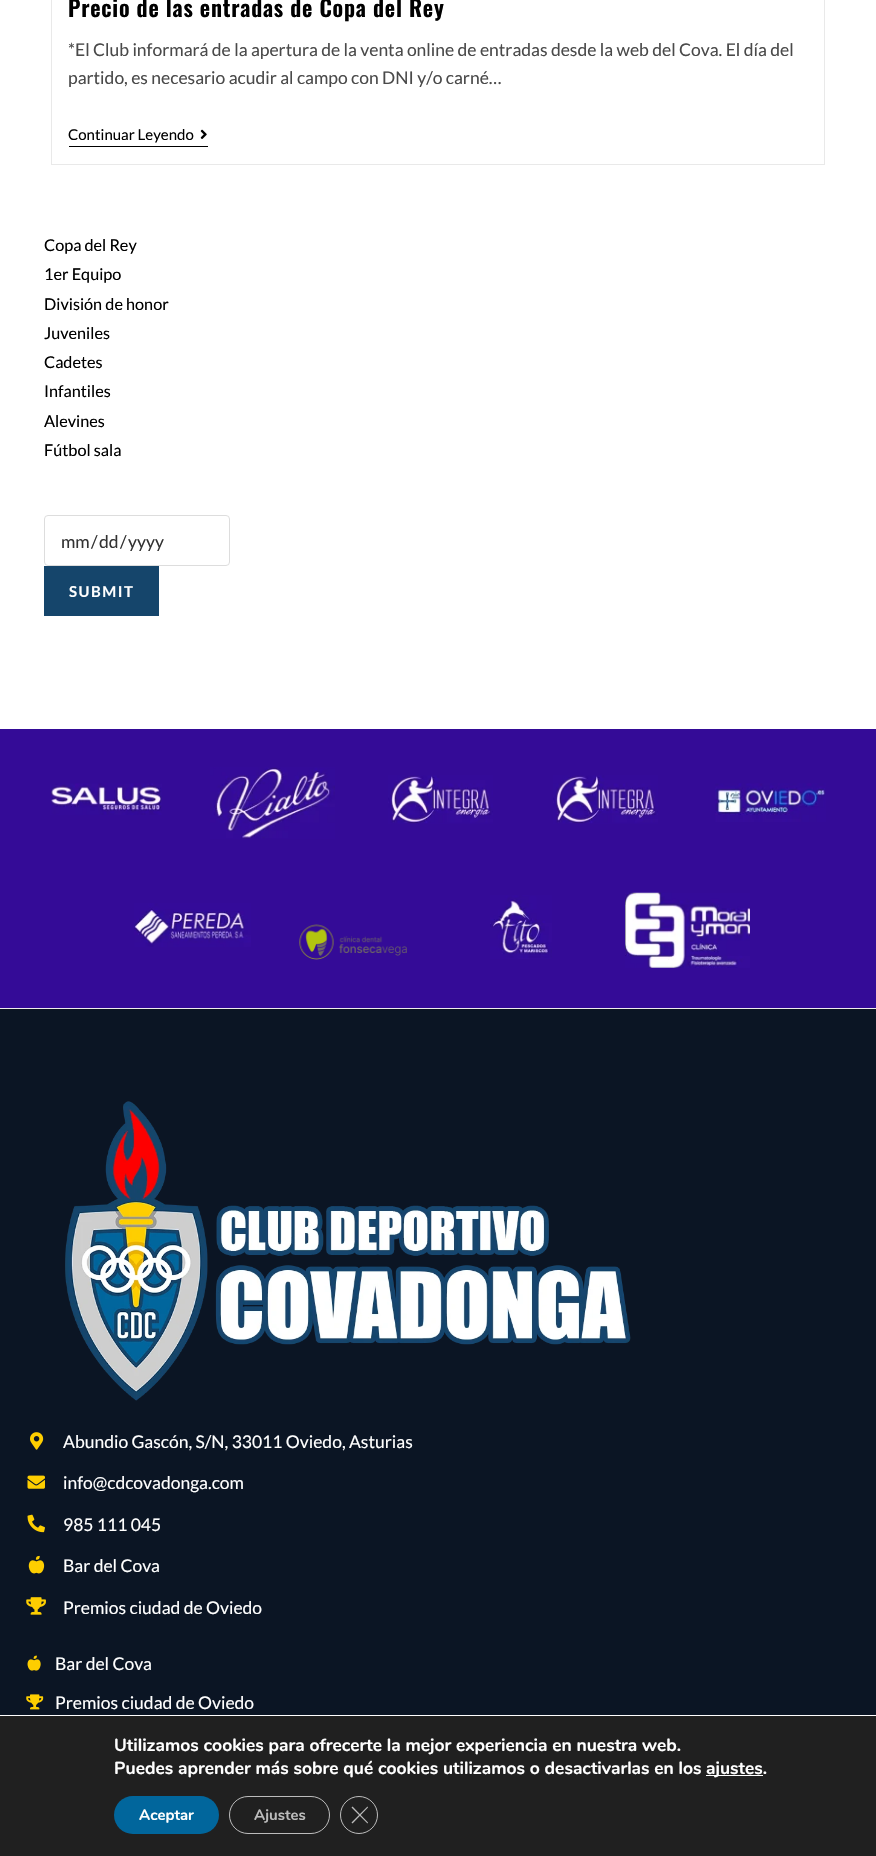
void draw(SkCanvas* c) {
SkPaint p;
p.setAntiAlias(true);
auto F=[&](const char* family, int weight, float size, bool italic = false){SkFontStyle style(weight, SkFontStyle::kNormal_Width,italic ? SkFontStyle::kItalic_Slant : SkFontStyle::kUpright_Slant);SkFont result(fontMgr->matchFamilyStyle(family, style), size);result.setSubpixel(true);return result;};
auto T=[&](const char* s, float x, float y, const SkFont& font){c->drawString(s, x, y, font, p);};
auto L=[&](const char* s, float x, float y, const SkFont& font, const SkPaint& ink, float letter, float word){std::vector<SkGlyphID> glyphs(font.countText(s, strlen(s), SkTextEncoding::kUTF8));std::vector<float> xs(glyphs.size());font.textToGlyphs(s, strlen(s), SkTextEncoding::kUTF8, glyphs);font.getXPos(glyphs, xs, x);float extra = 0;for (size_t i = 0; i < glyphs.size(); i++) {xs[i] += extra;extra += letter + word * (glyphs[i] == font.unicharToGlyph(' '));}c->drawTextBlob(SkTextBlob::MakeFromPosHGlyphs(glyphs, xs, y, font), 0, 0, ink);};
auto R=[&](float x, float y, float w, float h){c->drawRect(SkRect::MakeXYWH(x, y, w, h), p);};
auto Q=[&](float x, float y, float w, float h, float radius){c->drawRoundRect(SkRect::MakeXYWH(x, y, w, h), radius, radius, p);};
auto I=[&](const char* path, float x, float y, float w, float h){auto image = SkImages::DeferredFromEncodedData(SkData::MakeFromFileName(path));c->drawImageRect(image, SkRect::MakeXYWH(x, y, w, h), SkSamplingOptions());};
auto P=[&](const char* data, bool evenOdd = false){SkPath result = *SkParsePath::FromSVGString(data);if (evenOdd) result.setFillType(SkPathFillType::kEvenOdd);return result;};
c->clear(0xffffffff);
p.setStroke(true);
p.setStrokeWidth(1);
p.setColor(0xffe9e9e9);
c->drawRect(SkRect::MakeXYWH(51.5,-.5,773,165),p);
auto f1 = F("Oswald",600,22.5);
p.setStroke(false);
p.setColor(0xff000000);
L("Precio de las entradas de Copa del Rey",68,17,f1,p,.75,0);
auto f2 = F("Lato",400,17.5);
p.setColor(0xff4a4a4a);
T("*El Club informará de la apertura de la venta online de entradas desde la web del Cova. El día del",68,56,f2);
T("partido, es necesario acudir al campo con DNI y/o carné…",68,84,f2);
p.setColor(0xff000000);
R(69,146,139,1);
auto f3 = F("Lato",400,15);
T("Continuar Leyendo",68,140,f3);
I("1.png",200,129,7,10);
auto f4 = F("Lato",400,16.25);
T("Copa del Rey",44,251,f4);
T("1er Equipo",44,280,f4);
T("División de honor",44,310,f4);
T("Juveniles",44,339,f4);
T("Cadetes",44,368,f4);
T("Infantiles",44,397,f4);
T("Alevines",44,427,f4);
T("Fútbol sala",44,456,f4);
p.setStroke(true);
p.setColor(0xffdddddd);
c->drawRoundRect(SkRect::MakeXYWH(44.5,515.5,185,50),3.5,3.5,p);
p.setStroke(false);
p.setColor(0xff333333);
T("mm",61,548,f2);
T("/",91,548,f2);
T("dd",99,548,f2);
T("/",120,548,f2);
T("yyyy",128,548,f2);
p.setColor(0xff15456b);
R(44,566,115,50);
auto f5 = F("Lato",700,15);
p.setColor(0xffffffff);
L("SUBMIT",69,597,f5,p,1.5,0);
p.setColor(0xff340b97);
R(0,729,876,279);
I("2.png",50,783,112,32);
I("3.png",210,767,125,72);
I("4.png",388,775,105,49);
I("4.png",553,775,105,49);
I("5.png",715,783,111,39);
I("6.png",134,903,117,44);
I("7.png",299,924,108,36);
I("8.png",490,895,62,64);
I("9.png",625,892,125,76);
p.setColor(0xffeeeeee);
R(0,1008,876,1);
p.setColor(0xff0b1524);
R(0,1009,876,706);
I("10.png",65,1101,566,300);
I("11.png",30,1432,14,18);
p.setColor(0xffffffff);
T("Abundio Gascón, S/N, 33011 Oviedo, Asturias",63,1448,f2);
I("12.png",27,1475,18,14);
T("info@cdcovadonga.com",63,1489,f2);
I("13.png",27,1514,18,19);
T("985 111 045",63,1531,f2);
I("14.png",28,1555,17,19);
T("Bar del Cova",63,1572,f2);
I("15.png",26,1597,20,18);
T("Premios ciudad de Oviedo",63,1614,f2);
I("16.png",27,1655,14,16);
T("Bar del Cova",55,1670,f2);
I("17.png",26,1694,18,16);
T("Premios ciudad de Oviedo",55,1709,f2);
p.setColor(0xff202020);
R(0,1716,876,140);
auto f6 = F("Nunito",700,17.5);
p.setColor(0xffffffff);
T("Utilizamos cookies para ofrecerte la mejor experiencia en nuestra web.",114,1751,f6);
T("Puedes aprender más sobre qué cookies utilizamos o desactivarlas en los",114,1774,f6);
R(706,1775,57,1);
T("ajustes.",706,1774,f6);
p.setColor(0xff01669c);
Q(114,1796,105,38,19);
auto f7 = F("Nunito",700,15);
p.setColor(0xffffffff);
T("Aceptar",139,1820,f7);
p.setStroke(true);
p.setColor(0xffbcbcbc);
c->drawRoundRect(SkRect::MakeXYWH(229.5,1796.5,100,37),18.5,18.5,p);
p.setStroke(false);
T("Ajustes",254,1820,f7);
p.setStroke(true);
c->drawCircle(359,1815,18.5,p);
p.setStroke(false);
c->drawPath(P("M367.5 1806.5l.5 1l-15.5 16l-1-1z"),p);
c->drawPath(P("M351.5 1807.5l1-1l15.5 16l-.5 1z"),p);
}
